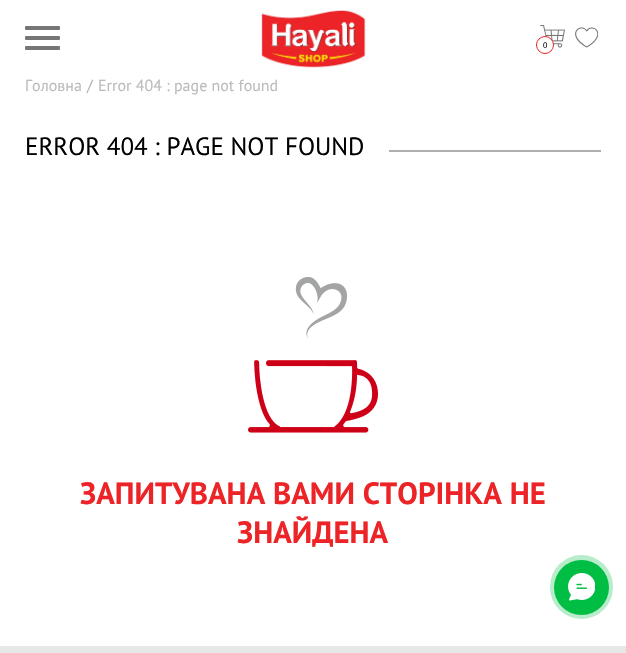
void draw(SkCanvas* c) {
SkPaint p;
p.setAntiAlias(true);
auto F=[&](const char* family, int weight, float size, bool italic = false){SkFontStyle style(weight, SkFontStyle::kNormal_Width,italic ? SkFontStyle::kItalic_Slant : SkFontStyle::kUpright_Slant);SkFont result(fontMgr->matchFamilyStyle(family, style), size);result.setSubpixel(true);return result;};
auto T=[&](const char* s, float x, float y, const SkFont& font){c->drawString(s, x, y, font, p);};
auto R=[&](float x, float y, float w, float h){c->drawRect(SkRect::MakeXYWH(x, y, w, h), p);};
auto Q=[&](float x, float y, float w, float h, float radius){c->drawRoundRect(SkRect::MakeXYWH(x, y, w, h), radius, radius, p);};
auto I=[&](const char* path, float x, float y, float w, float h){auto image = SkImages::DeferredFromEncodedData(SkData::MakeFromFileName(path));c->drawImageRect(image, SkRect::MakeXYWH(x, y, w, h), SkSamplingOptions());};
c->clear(0xffffffff);
p.setColor(0xff767676);
Q(25,36,35,4,1);
Q(25,26,35,4,1);
Q(25,46,35,4,1);
I("1.png",261,10,105,58);
I("2.png",540,25,25,23);
p.setColor(0xffffffff);
c->drawCircle(545,45,8.5,p);
p.setStroke(true);
p.setStrokeWidth(1);
p.setColor(0xffec2427);
c->drawCircle(545,45,8.5,p);
auto f1 = F("PT Sans",400,8);
p.setStroke(false);
p.setColor(0xff000000);
T("0",543,48,f1);
I("3.png",575,27,23,21);
auto f2 = F("PT Sans",400,16);
p.setColor(0xffbabcbb);
T("Головна",25,91,f2);
p.setColor(0xffb2b4b3);
T("/",87,91,f2);
p.setColor(0xffbabcbb);
T("Error 404 : page not found",98,91,f2);
auto f3 = F("PT Sans",400,25);
p.setColor(0xff000000);
T("ERROR 404 : PAGE NOT FOUND",25,155,f3);
p.setColor(0xffaeaeae);
R(389,150,212,2);
I("4.png",248,277,130,156);
auto f4 = F("PT Sans",700,30.75);
p.setColor(0xffec2427);
T("ЗАПИТУВАНА ВАМИ СТОРІНКА НЕ",80,504,f4);
T("ЗНАЙДЕНА",237,543,f4);
p.setColor(0xffe7e7e7);
R(0,646,626,7);
p.setColor(0xff00bf43);
c->drawCircle(581.5,587.5,27.5,p);
p.setColor(0x2600bf43);
Q(550,555,63,64,31.5);
Q(550,555,63,64,31.5);
I("5.png",568,573,27,28);
}
